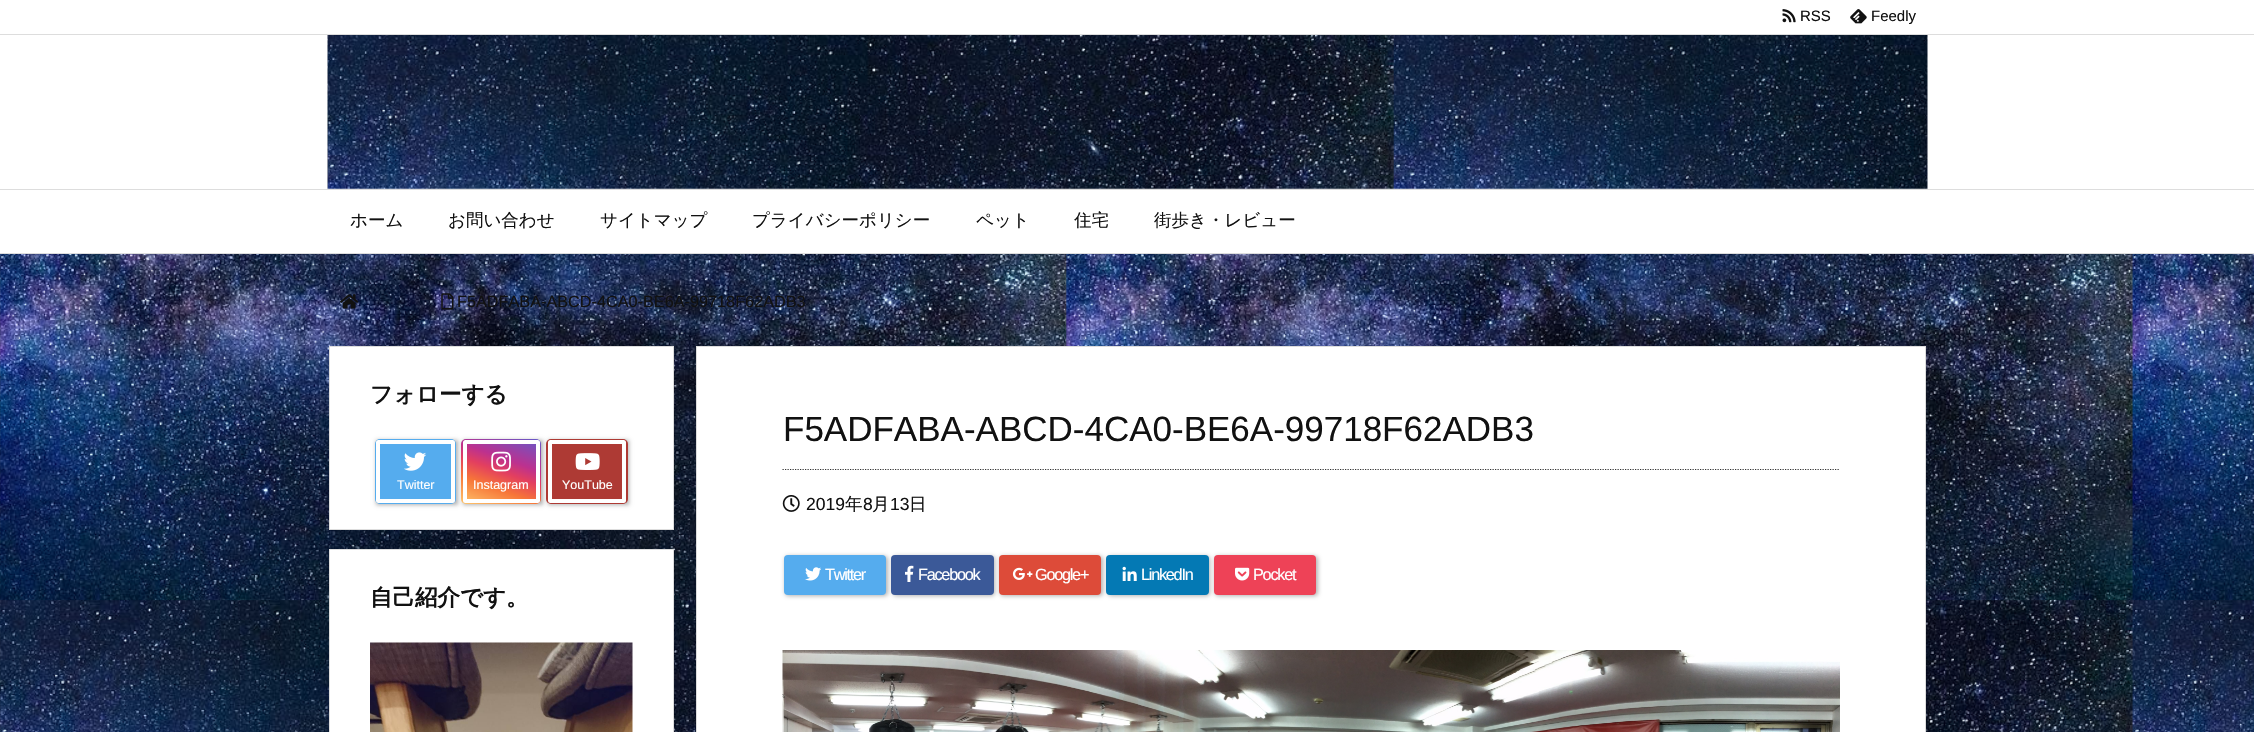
void draw(SkCanvas* c) {
SkPaint p;
p.setAntiAlias(true);
auto F=[&](const char* family, int weight, float size, bool italic = false){SkFontStyle style(weight, SkFontStyle::kNormal_Width,italic ? SkFontStyle::kItalic_Slant : SkFontStyle::kUpright_Slant);SkFont result(fontMgr->matchFamilyStyle(family, style), size);result.setSubpixel(true);return result;};
auto T=[&](const char* s, float x, float y, const SkFont& font){c->drawString(s, x, y, font, p);};
auto L=[&](const char* s, float x, float y, const SkFont& font, const SkPaint& ink, float letter, float word){std::vector<SkGlyphID> glyphs(font.countText(s, strlen(s), SkTextEncoding::kUTF8));std::vector<float> xs(glyphs.size());font.textToGlyphs(s, strlen(s), SkTextEncoding::kUTF8, glyphs);font.getXPos(glyphs, xs, x);float extra = 0;for (size_t i = 0; i < glyphs.size(); i++) {xs[i] += extra;extra += letter + word * (glyphs[i] == font.unicharToGlyph(' '));}c->drawTextBlob(SkTextBlob::MakeFromPosHGlyphs(glyphs, xs, y, font), 0, 0, ink);};
auto R=[&](float x, float y, float w, float h){c->drawRect(SkRect::MakeXYWH(x, y, w, h), p);};
auto Q=[&](float x, float y, float w, float h, float radius){c->drawRoundRect(SkRect::MakeXYWH(x, y, w, h), radius, radius, p);};
auto I=[&](const char* path, float x, float y, float w, float h){auto image = SkImages::DeferredFromEncodedData(SkData::MakeFromFileName(path));c->drawImageRect(image, SkRect::MakeXYWH(x, y, w, h), SkSamplingOptions());};
auto P=[&](const char* data, bool evenOdd = false){SkPath result = *SkParsePath::FromSVGString(data);if (evenOdd) result.setFillType(SkPathFillType::kEvenOdd);return result;};
c->clear(0xffffffff);
I("1.png",0,254,2254,478);
p.setColor(0xffdddddd);
R(0,34,2254,1);
I("2.png",1782,9,14,14);
auto f1 = F("Liberation Sans",400,15);
p.setColor(0xff111111);
T("RSS",1800,21,f1);
I("3.png",1850,9,17,15);
T("Feedly",1871,21,f1);
p.setColor(0xffdddddd);
R(0,189,2254,1);
R(0,253,2254,1);
auto f2 = F("WenQuanYi Zen Hei",500,17.5);
p.setColor(0xff111111);
T("ホーム",350,226,f2);
T("お問い合わせ",448,226,f2);
T("サイトマップ",600,226,f2);
T("プライバシーポリシー",752,226,f2);
T("ペット",976,226,f2);
T("住宅",1074,226,f2);
T("街歩き・レビュー",1154,226,f2);
I("4.png",327,35,1601,154);
I("5.png",340,294,19,15);
I("6.png",441,293,13,17);
auto f3 = F("Liberation Sans",400,16.25);
T("F5ADFABA-ABCD-4CA0-BE6A-99718F62ADB3",457,307,f3);
p.setColor(0xffffffff);
c->drawRect(SkRect::MakeXYWH(329.5,346.5,344,183),p);
p.setStroke(true);
p.setStrokeWidth(1);
p.setColor(0xffdddddd);
c->drawRect(SkRect::MakeXYWH(329.5,346.5,344,183),p);
auto f4 = F("WenQuanYi Zen Hei",700,22.5);
p.setStroke(false);
p.setColor(0xff111111);
T("フォローする",370,402,f4);
p.setColor(0x4d000000);
p.setMaskFilter(SkMaskFilter::MakeBlur(kNormal_SkBlurStyle, 2));
c->drawRect(SkRect::MakeXYWH(376,440,82,65),p);
p.setMaskFilter(nullptr);
p.setColor(0xff55acee);
Q(375,439,81,65,5);
p.setStroke(true);
p.setStrokeWidth(4);
p.setColor(0xffffffff);
c->drawRoundRect(SkRect::MakeXYWH(378,442,75,59),.5,.5,p);
I("7.png",404,452,23,19);
auto f5 = F("Liberation Sans",400,12.5);
p.setStroke(false);
T("Twitter",397,489,f5);
p.setColor(0x4d000000);
p.setMaskFilter(SkMaskFilter::MakeBlur(kNormal_SkBlurStyle, 2));
c->drawRect(SkRect::MakeXYWH(463,440,80,65),p);
p.setMaskFilter(nullptr);
{
const SkColor colors[] = {0xff6559ca,0xffbc318f,0xffe33f5f,0xfff77638,0xfffec66d};
const float stops[] = {0,.35,.5,.7,1};
const SkPoint ends[] = {{516,430}, {486,513}};
p.setShader(SkGradientShader::MakeLinear(ends, colors, stops, 5, SkTileMode::kClamp));
p.setAlpha(255);
}
Q(461,439,80,65,5);
p.setStroke(true);
p.setShader(nullptr);
p.setColor(0xffffffff);
c->drawRoundRect(SkRect::MakeXYWH(465,442,73,59),.5,.5,p);
I("8.png",491,451,20,21);
p.setStroke(false);
T("Instagram",473,489,f5);
p.setColor(0x4d000000);
p.setMaskFilter(SkMaskFilter::MakeBlur(kNormal_SkBlurStyle, 2));
c->drawRect(SkRect::MakeXYWH(548,440,81,65),p);
p.setMaskFilter(nullptr);
p.setColor(0xffae3a34);
Q(546,439,82,65,5);
p.setStroke(true);
p.setColor(0xffffffff);
c->drawRoundRect(SkRect::MakeXYWH(550,442,74,59),.5,.5,p);
I("9.png",575,453,25,17);
p.setStroke(false);
T("YouTube",562,489,f5);
c->drawRect(SkRect::MakeXYWH(329.5,549.5,344,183),p);
p.setStroke(true);
p.setStrokeWidth(1);
p.setColor(0xffdddddd);
c->drawRect(SkRect::MakeXYWH(329.5,549.5,344,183),p);
p.setStroke(false);
p.setColor(0xff111111);
T("自己紹介です。",370,605,f4);
I("10.png",370,642,263,90);
p.setColor(0xffffffff);
c->drawRect(SkRect::MakeXYWH(696.5,346.5,1229,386),p);
p.setStroke(true);
p.setColor(0xffdddddd);
c->drawRect(SkRect::MakeXYWH(696.5,346.5,1229,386),p);
auto f6 = F("Liberation Sans",400,35);
p.setStroke(false);
p.setColor(0xff111111);
T("F5ADFABA-ABCD-4CA0-BE6A-99718F62ADB3",783,441,f6);
p.setStroke(true);
p.setStrokeWidth(1.2);
p.setColor(0xff333333);
p.setPathEffect(SkDashPathEffect::Make({{1.25f,1.25f}}, 0));
c->drawPath(P("M782.5 469.5h1057.5"),p);
p.setPathEffect(nullptr);
I("11.png",782,495,18,17);
auto f7 = F("Liberation Sans",400,17.5);
p.setStroke(false);
p.setColor(0xff111111);
T("2019",806,510,f7);
T("年",845,510,f2);
T("8",863,510,f7);
T("月",872,510,f2);
T("13",890,510,f7);
T("日",909,510,f2);
p.setColor(0x4d000000);
p.setMaskFilter(SkMaskFilter::MakeBlur(kNormal_SkBlurStyle, 2));
c->drawRoundRect(SkRect::MakeXYWH(785,556,103,40),4,4,p);
p.setMaskFilter(nullptr);
p.setColor(0xff55acee);
Q(784,555,102,40,4);
I("12.png",805,567,16,14);
p.setColor(0xffffffff);
L("Twitter",825,580,f3,p,-1.25,0);
p.setColor(0x4d000000);
p.setMaskFilter(SkMaskFilter::MakeBlur(kNormal_SkBlurStyle, 2));
c->drawRoundRect(SkRect::MakeXYWH(893,556,102,40),4,4,p);
p.setMaskFilter(nullptr);
p.setColor(0xff3b5998);
Q(891,555,103,40,4);
I("13.png",905,565,9,17);
p.setColor(0xffffffff);
L("Facebook",918,580,f3,p,-1.25,0);
p.setColor(0x4d000000);
p.setMaskFilter(SkMaskFilter::MakeBlur(kNormal_SkBlurStyle, 2));
c->drawRoundRect(SkRect::MakeXYWH(1000,556,103,40),4,4,p);
p.setMaskFilter(nullptr);
p.setColor(0xffdd4b39);
Q(999,555,102,40,4);
I("14.png",1012,567,21,13);
p.setColor(0xffffffff);
L("Google+",1035,580,f3,p,-1.25,0);
p.setColor(0x4d000000);
p.setMaskFilter(SkMaskFilter::MakeBlur(kNormal_SkBlurStyle, 2));
c->drawRoundRect(SkRect::MakeXYWH(1108,556,102,40),4,4,p);
p.setMaskFilter(nullptr);
p.setColor(0xff0479b4);
Q(1106,555,103,40,4);
I("15.png",1122,566,15,15);
p.setColor(0xffffffff);
L("LinkedIn",1141,580,f3,p,-1.25,0);
p.setColor(0x4d000000);
p.setMaskFilter(SkMaskFilter::MakeBlur(kNormal_SkBlurStyle, 2));
c->drawRoundRect(SkRect::MakeXYWH(1215,556,103,40),4,4,p);
p.setMaskFilter(nullptr);
p.setColor(0xffee4257);
Q(1214,555,102,40,4);
I("16.png",1235,567,15,14);
p.setColor(0xffffffff);
L("Pocket",1253,580,f3,p,-1.25,0);
I("17.png",782,650,1058,82);
}
